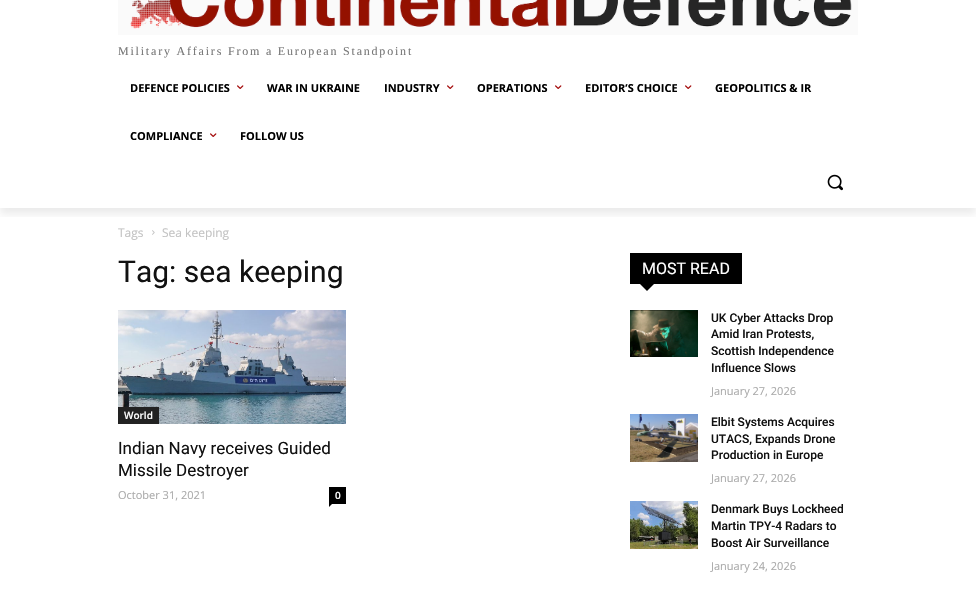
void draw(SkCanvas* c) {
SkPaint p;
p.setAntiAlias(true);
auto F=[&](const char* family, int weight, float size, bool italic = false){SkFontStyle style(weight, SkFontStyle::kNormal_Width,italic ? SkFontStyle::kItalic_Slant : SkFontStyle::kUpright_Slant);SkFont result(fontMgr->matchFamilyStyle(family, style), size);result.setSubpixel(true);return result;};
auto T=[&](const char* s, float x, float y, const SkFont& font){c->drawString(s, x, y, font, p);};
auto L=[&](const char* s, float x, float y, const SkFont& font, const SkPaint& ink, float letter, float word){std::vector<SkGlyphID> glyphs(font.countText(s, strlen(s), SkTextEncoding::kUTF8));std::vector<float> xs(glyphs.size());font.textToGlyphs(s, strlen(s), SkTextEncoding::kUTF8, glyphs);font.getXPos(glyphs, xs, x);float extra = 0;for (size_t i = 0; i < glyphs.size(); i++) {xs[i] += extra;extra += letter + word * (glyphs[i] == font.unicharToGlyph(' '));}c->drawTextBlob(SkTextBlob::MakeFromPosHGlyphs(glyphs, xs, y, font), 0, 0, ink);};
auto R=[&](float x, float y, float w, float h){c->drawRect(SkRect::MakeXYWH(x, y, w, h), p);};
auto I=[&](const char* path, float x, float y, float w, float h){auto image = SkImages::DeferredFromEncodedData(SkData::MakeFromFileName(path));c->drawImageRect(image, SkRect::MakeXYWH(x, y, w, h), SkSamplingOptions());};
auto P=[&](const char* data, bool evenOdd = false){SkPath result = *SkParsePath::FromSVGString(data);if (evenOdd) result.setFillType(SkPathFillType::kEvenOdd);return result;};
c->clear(0xffffffff);
I("1.png",118,0,740,35);
c->save();
c->clipRect(SkRect::MakeXYWH(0,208,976,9));
p.setColor(0x14000000);
p.setMaskFilter(SkMaskFilter::MakeBlur(kNormal_SkBlurStyle, 4));
c->drawRect(SkRect::MakeXYWH(0,-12,976,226),p);
p.setMaskFilter(nullptr);
c->restore();
auto f1 = F("Liberation Serif",400,12);
p.setColor(0xff777777);
L("Military Affairs From a European Standpoint",118,55,f1,p,1.8,0);
auto f2 = F("Open Sans",700,11);
p.setColor(0xff000000);
T("DEFENCE POLICIES",130,92,f2);
I("2.png",237,85,7,4);
T("WAR IN UKRAINE",267,92,f2);
T("INDUSTRY",384,92,f2);
I("2.png",447,85,7,4);
T("OPERATIONS",477,92,f2);
I("2.png",555,85,7,4);
T("EDITOR’S CHOICE",585,92,f2);
I("2.png",685,85,7,4);
T("GEOPOLITICS & IR",715,92,f2);
T("COMPLIANCE",130,140,f2);
I("2.png",210,133,7,4);
T("FOLLOW US",240,140,f2);
I("3.png",827,174,16,17);
auto f3 = F("Open Sans",400,12);
p.setColor(0xffc3c3c3);
T("Tags",118,237,f3);
I("4.png",152,230,3,5);
T("Sea keeping",162,237,f3);
auto f4 = F("Roboto",400,30);
p.setColor(0xff111111);
T("Tag: sea keeping",118,282,f4);
I("5.png",118,310,228,114);
p.setColor(0xff222222);
R(118,407,41,17);
auto f5 = F("Open Sans",600,10);
p.setColor(0xffffffff);
T("World",124,419,f5);
auto f6 = F("Roboto",400,17);
p.setColor(0xff111111);
T("Indian Navy receives Guided",118,454,f6);
T("Missile Destroyer",118,476,f6);
auto f7 = F("Open Sans",400,11);
p.setColor(0xffaaaaaa);
T("October 31, 2021",118,499,f7);
p.setColor(0xff000000);
R(329,487,17,17);
p.setColor(0xffffffff);
T("0",335,499,f5);
p.setColor(0xff000000);
c->drawPath(P("M329 504h3l-3 3z"),p);
R(630,253,112,31);
auto f8 = F("Roboto",400,16);
p.setColor(0xffffffff);
T("MOST READ",642,274,f8);
p.setColor(0xff000000);
c->drawPath(P("M640 284h14l-7 7z"),p);
I("6.png",630,310,68,47);
auto f9 = F("Roboto",500,12);
p.setColor(0xff111111);
T("UK Cyber Attacks Drop",711,322,f9);
T("Amid Iran Protests,",711,338,f9);
T("Scottish Independence",711,355,f9);
T("Influence Slows",711,372,f9);
p.setColor(0xffaaaaaa);
T("January 27, 2026",711,395,f7);
I("7.png",630,414,68,48);
p.setColor(0xff111111);
T("Elbit Systems Acquires",711,426,f9);
T("UTACS, Expands Drone",711,443,f9);
T("Production in Europe",711,459,f9);
p.setColor(0xffaaaaaa);
T("January 27, 2026",711,482,f7);
I("8.png",630,501,68,48);
p.setColor(0xff111111);
T("Denmark Buys Lockheed",711,513,f9);
T("Martin TPY-4 Radars to",711,530,f9);
T("Boost Air Surveillance",711,547,f9);
p.setColor(0xffaaaaaa);
T("January 24, 2026",711,570,f7);
}
